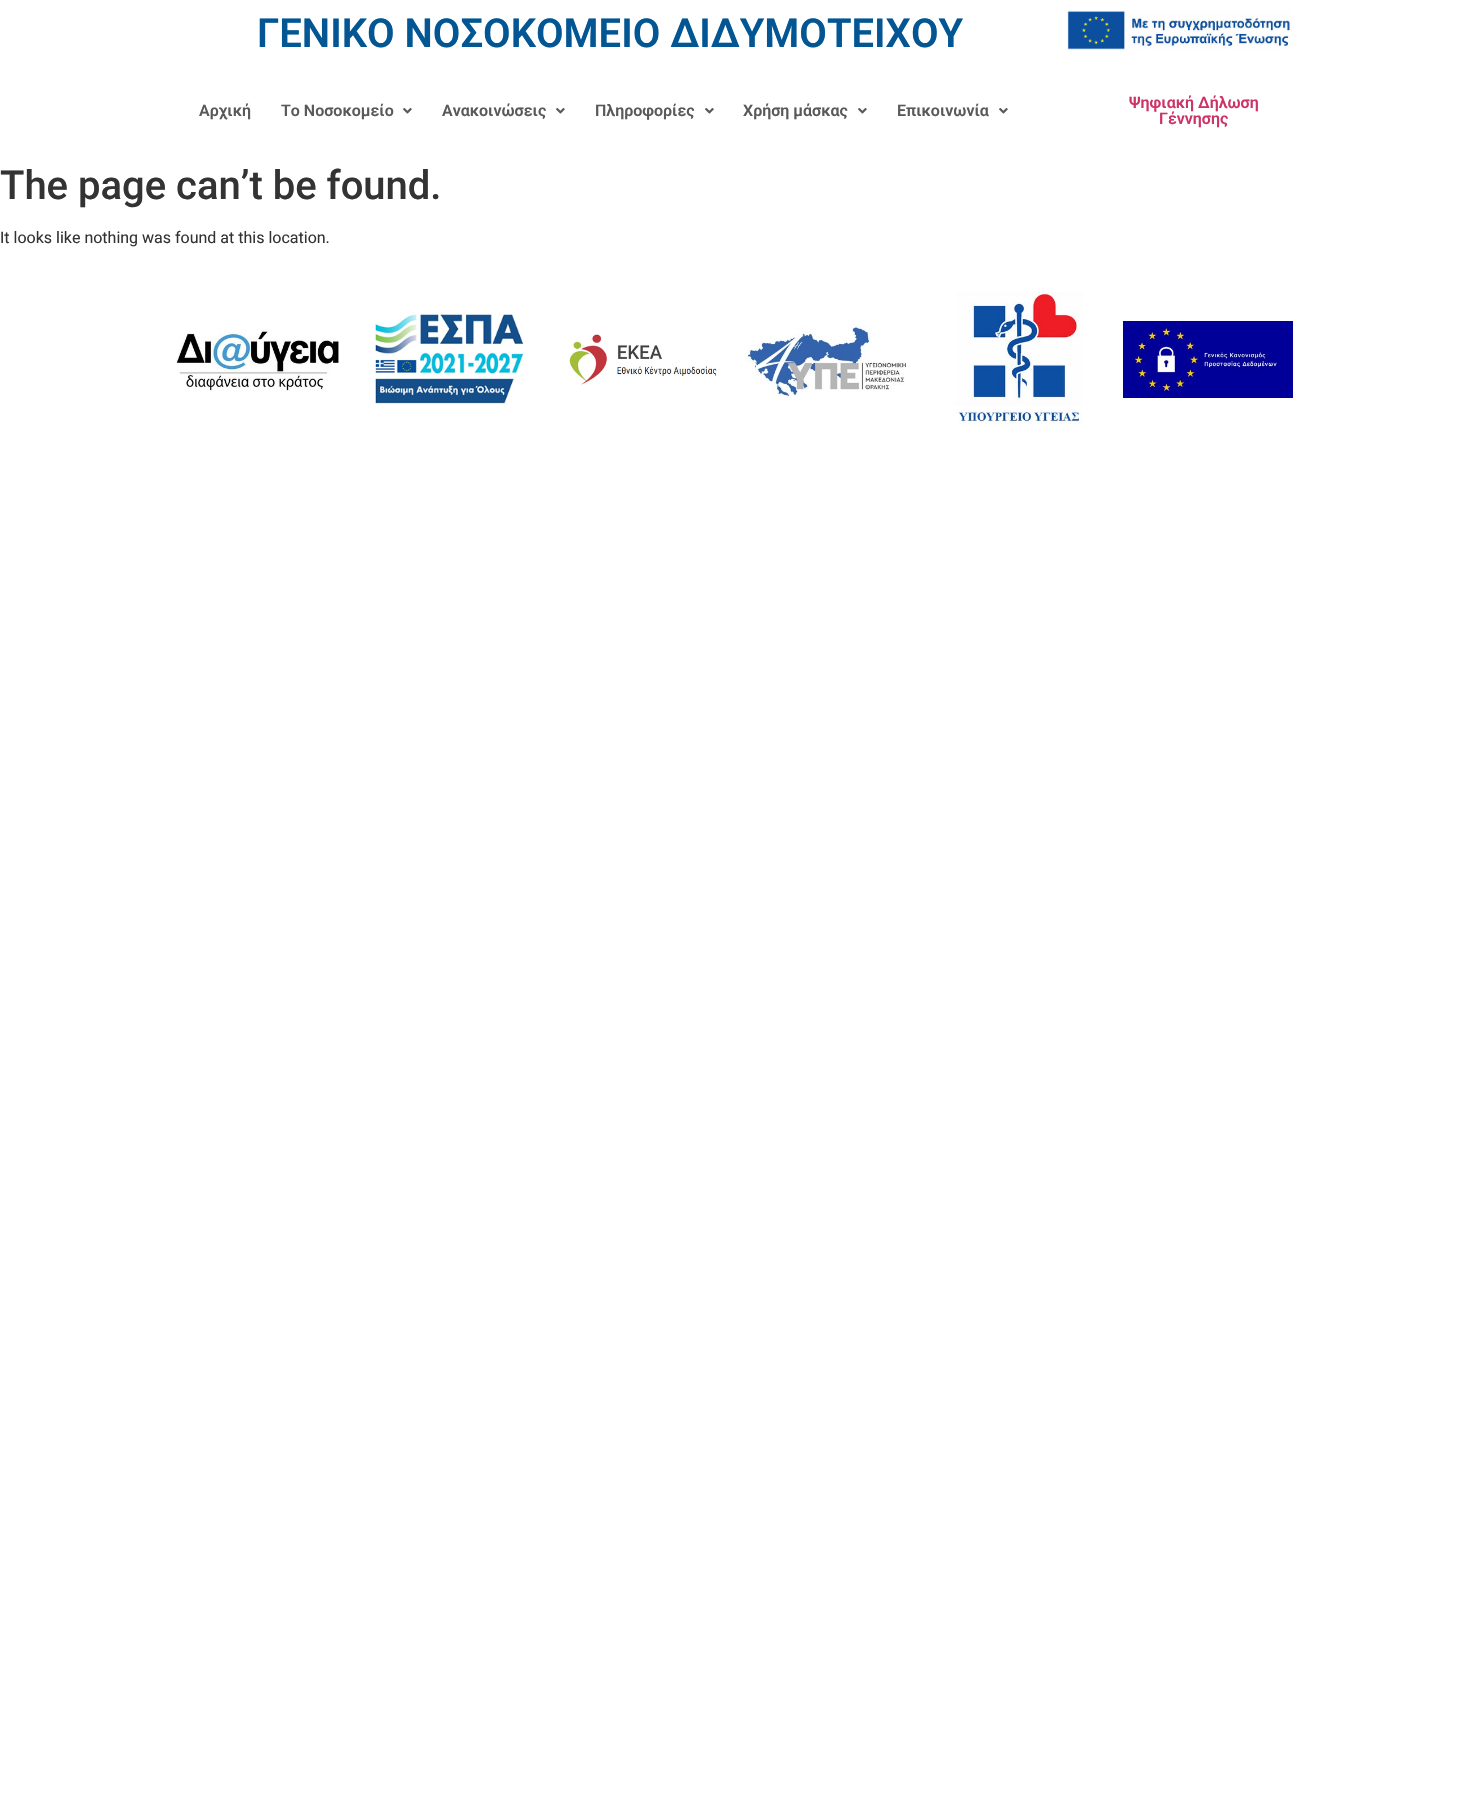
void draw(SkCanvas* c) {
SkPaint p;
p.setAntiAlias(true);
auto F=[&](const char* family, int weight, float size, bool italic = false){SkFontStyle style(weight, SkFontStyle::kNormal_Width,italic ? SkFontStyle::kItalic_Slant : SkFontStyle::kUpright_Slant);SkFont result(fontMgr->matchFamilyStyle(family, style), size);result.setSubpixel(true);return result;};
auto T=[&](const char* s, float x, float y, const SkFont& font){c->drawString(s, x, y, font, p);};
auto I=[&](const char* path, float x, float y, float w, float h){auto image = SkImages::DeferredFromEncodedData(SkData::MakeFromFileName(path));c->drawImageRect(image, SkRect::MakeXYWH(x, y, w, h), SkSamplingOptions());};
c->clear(0xffffffff);
auto f1 = F("Roboto",600,40);
p.setColor(0xff015693);
T("ΓΕΝΙΚΟ ΝΟΣΟΚΟΜΕΙΟ ΔΙΔΥΜΟΤΕΙΧΟΥ",257,47,f1);
I("1.png",1067,10,225,40);
auto f2 = F("Roboto",600,16);
p.setColor(0xff595959);
T("Αρχική",199,116,f2);
T("Το Νοσοκομείο",281,116,f2);
I("2.png",403,108,9,6);
T("Ανακοινώσεις",442,116,f2);
I("2.png",556,108,9,6);
T("Πληροφορίες",595,116,f2);
I("2.png",705,108,9,6);
T("Χρήση μάσκας",743,116,f2);
I("2.png",858,108,9,6);
T("Επικοινωνία",897,116,f2);
I("2.png",999,108,9,6);
p.setColor(0xffcc3366);
T("Ψηφιακή Δήλωση",1129,108,f2);
T("Γέννησης",1159,124,f2);
auto f3 = F("Roboto",500,40);
p.setColor(0xff333333);
T("The page can’t be found.",0,199,f3);
auto f4 = F("Roboto",400,16);
T("It looks like nothing was found at this location.",0,243,f4);
I("3.png",176,328,163,63);
I("4.png",374,312,150,92);
I("5.png",569,334,148,51);
I("6.png",743,326,163,73);
I("7.png",955,292,128,136);
I("8.png",1123,321,170,77);
}
